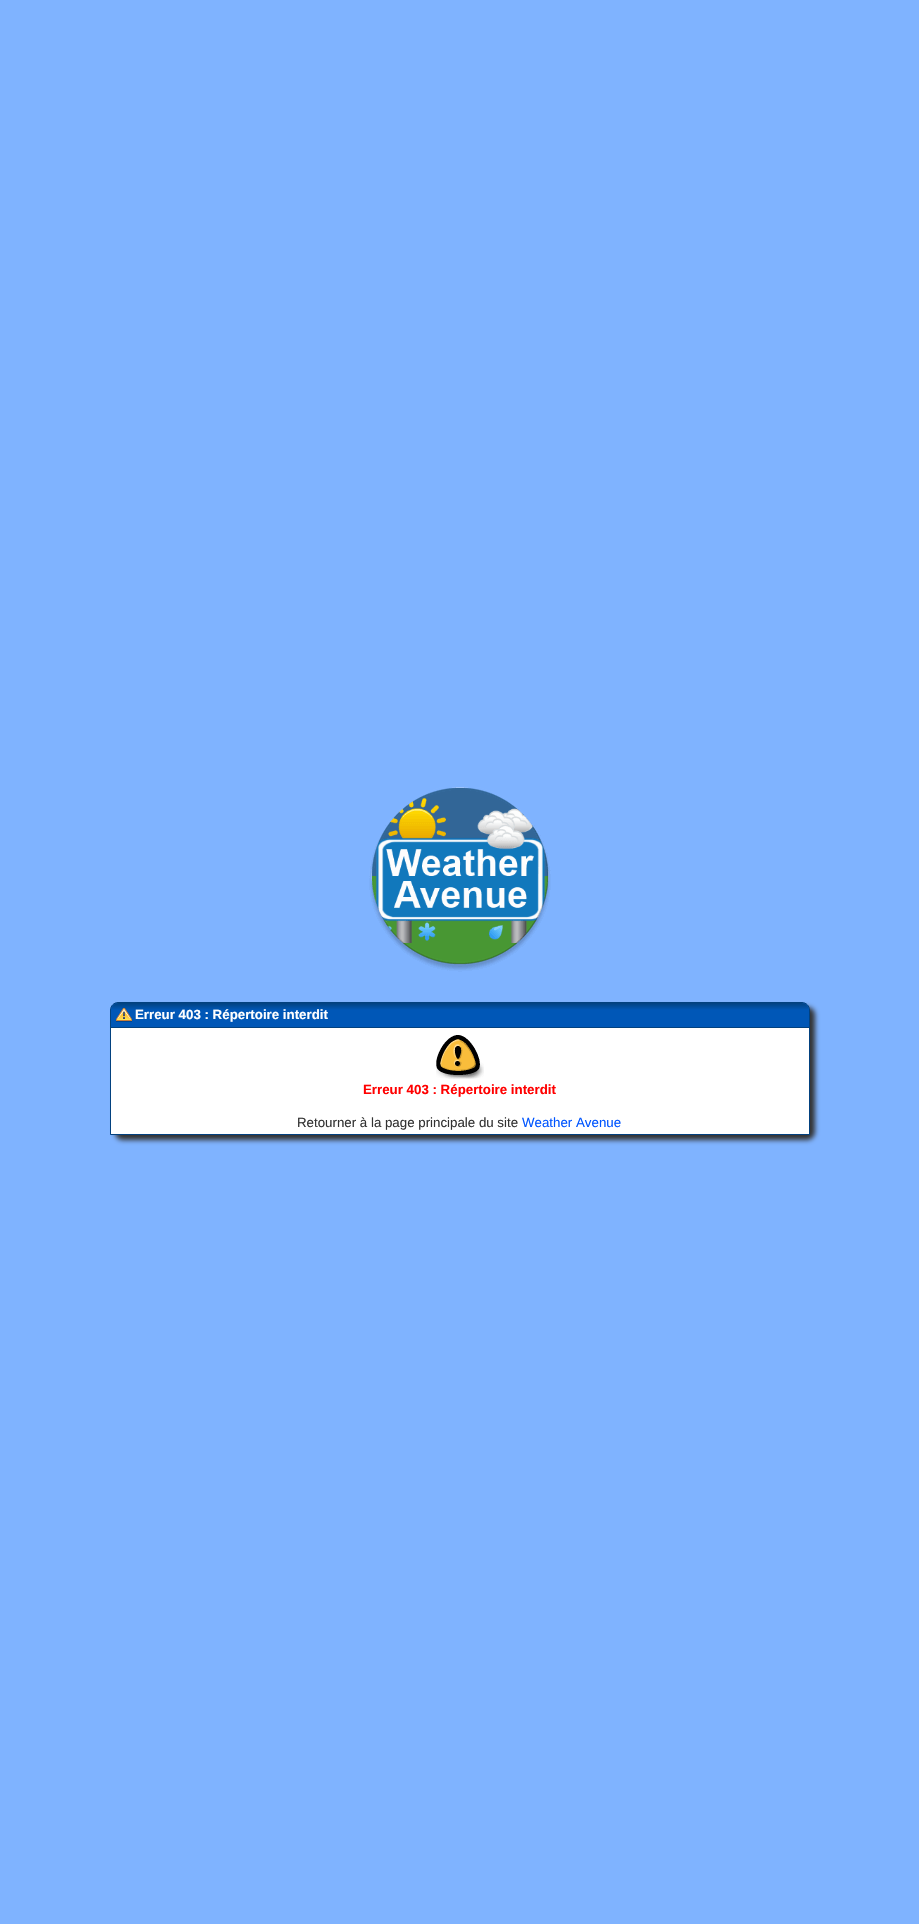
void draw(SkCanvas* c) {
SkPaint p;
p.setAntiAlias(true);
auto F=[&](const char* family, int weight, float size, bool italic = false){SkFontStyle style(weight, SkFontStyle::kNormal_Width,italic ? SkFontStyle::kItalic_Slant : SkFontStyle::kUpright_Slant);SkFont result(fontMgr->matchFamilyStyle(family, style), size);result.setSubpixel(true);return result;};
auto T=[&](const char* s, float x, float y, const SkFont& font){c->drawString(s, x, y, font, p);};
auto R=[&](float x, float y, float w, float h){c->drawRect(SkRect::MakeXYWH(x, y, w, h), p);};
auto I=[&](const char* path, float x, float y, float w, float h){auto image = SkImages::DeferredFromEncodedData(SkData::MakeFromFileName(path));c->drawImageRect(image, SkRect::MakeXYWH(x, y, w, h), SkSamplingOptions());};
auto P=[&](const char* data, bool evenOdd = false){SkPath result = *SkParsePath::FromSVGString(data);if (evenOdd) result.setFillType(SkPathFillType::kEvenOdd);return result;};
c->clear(0xff7fb3ff);
I("1.png",369,787,182,185);
p.setColor(0xff333333);
p.setMaskFilter(SkMaskFilter::MakeBlur(kNormal_SkBlurStyle, 2.5));
c->drawRoundRect(SkRect::MakeXYWH(115,1007,700,133),8,8,p);
p.setMaskFilter(nullptr);
p.setColor(0xff0057b7);
c->drawPath(P("M118 1002.5h684c4 0 7.5 3.5 7.5 7.5v124.5h-699v-124.5c0-4 3.5-7.5 7.5-7.5z"),p);
p.setStroke(true);
p.setStrokeWidth(1);
p.setColor(0xff02417f);
c->drawPath(P("M118 1002.5h684c4 0 7.5 3.5 7.5 7.5v124.5h-699v-124.5c0-4 3.5-7.5 7.5-7.5z"),p);
p.setStroke(false);
{
const SkColor colors[] = {0xff0057b7,0xff02417f};
const float stops[] = {.7,1};
const SkPoint ends[] = {{111,1027}, {111,1003}};
p.setShader(SkGradientShader::MakeLinear(ends, colors, stops, 2, SkTileMode::kClamp));
p.setAlpha(255);
}
c->drawPath(P("M119 1003h682c4.5 0 8 3.5 8 8v16h-698v-16c0-4.5 3.5-8 8-8z"),p);
I("2.png",116,1008,16,14);
auto f1 = F("Liberation Sans",700,13.3);
p.setShader(nullptr);
p.setColor(0xffffffff);
T("Erreur 403 : Répertoire interdit",135,1019,f1);
R(111,1028,698,106);
p.setColor(0xff02417f);
R(111,1027,698,1);
I("3.png",436,1035,48,44);
p.setColor(0xffff0000);
T("Erreur 403 : Répertoire interdit",363,1094,f1);
auto f2 = F("Liberation Sans",400,13.3);
p.setColor(0xff333333);
T("Retourner à la page principale du site",297,1127,f2);
p.setColor(0xff0055ff);
T("Weather Avenue",522,1127,f2);
}
